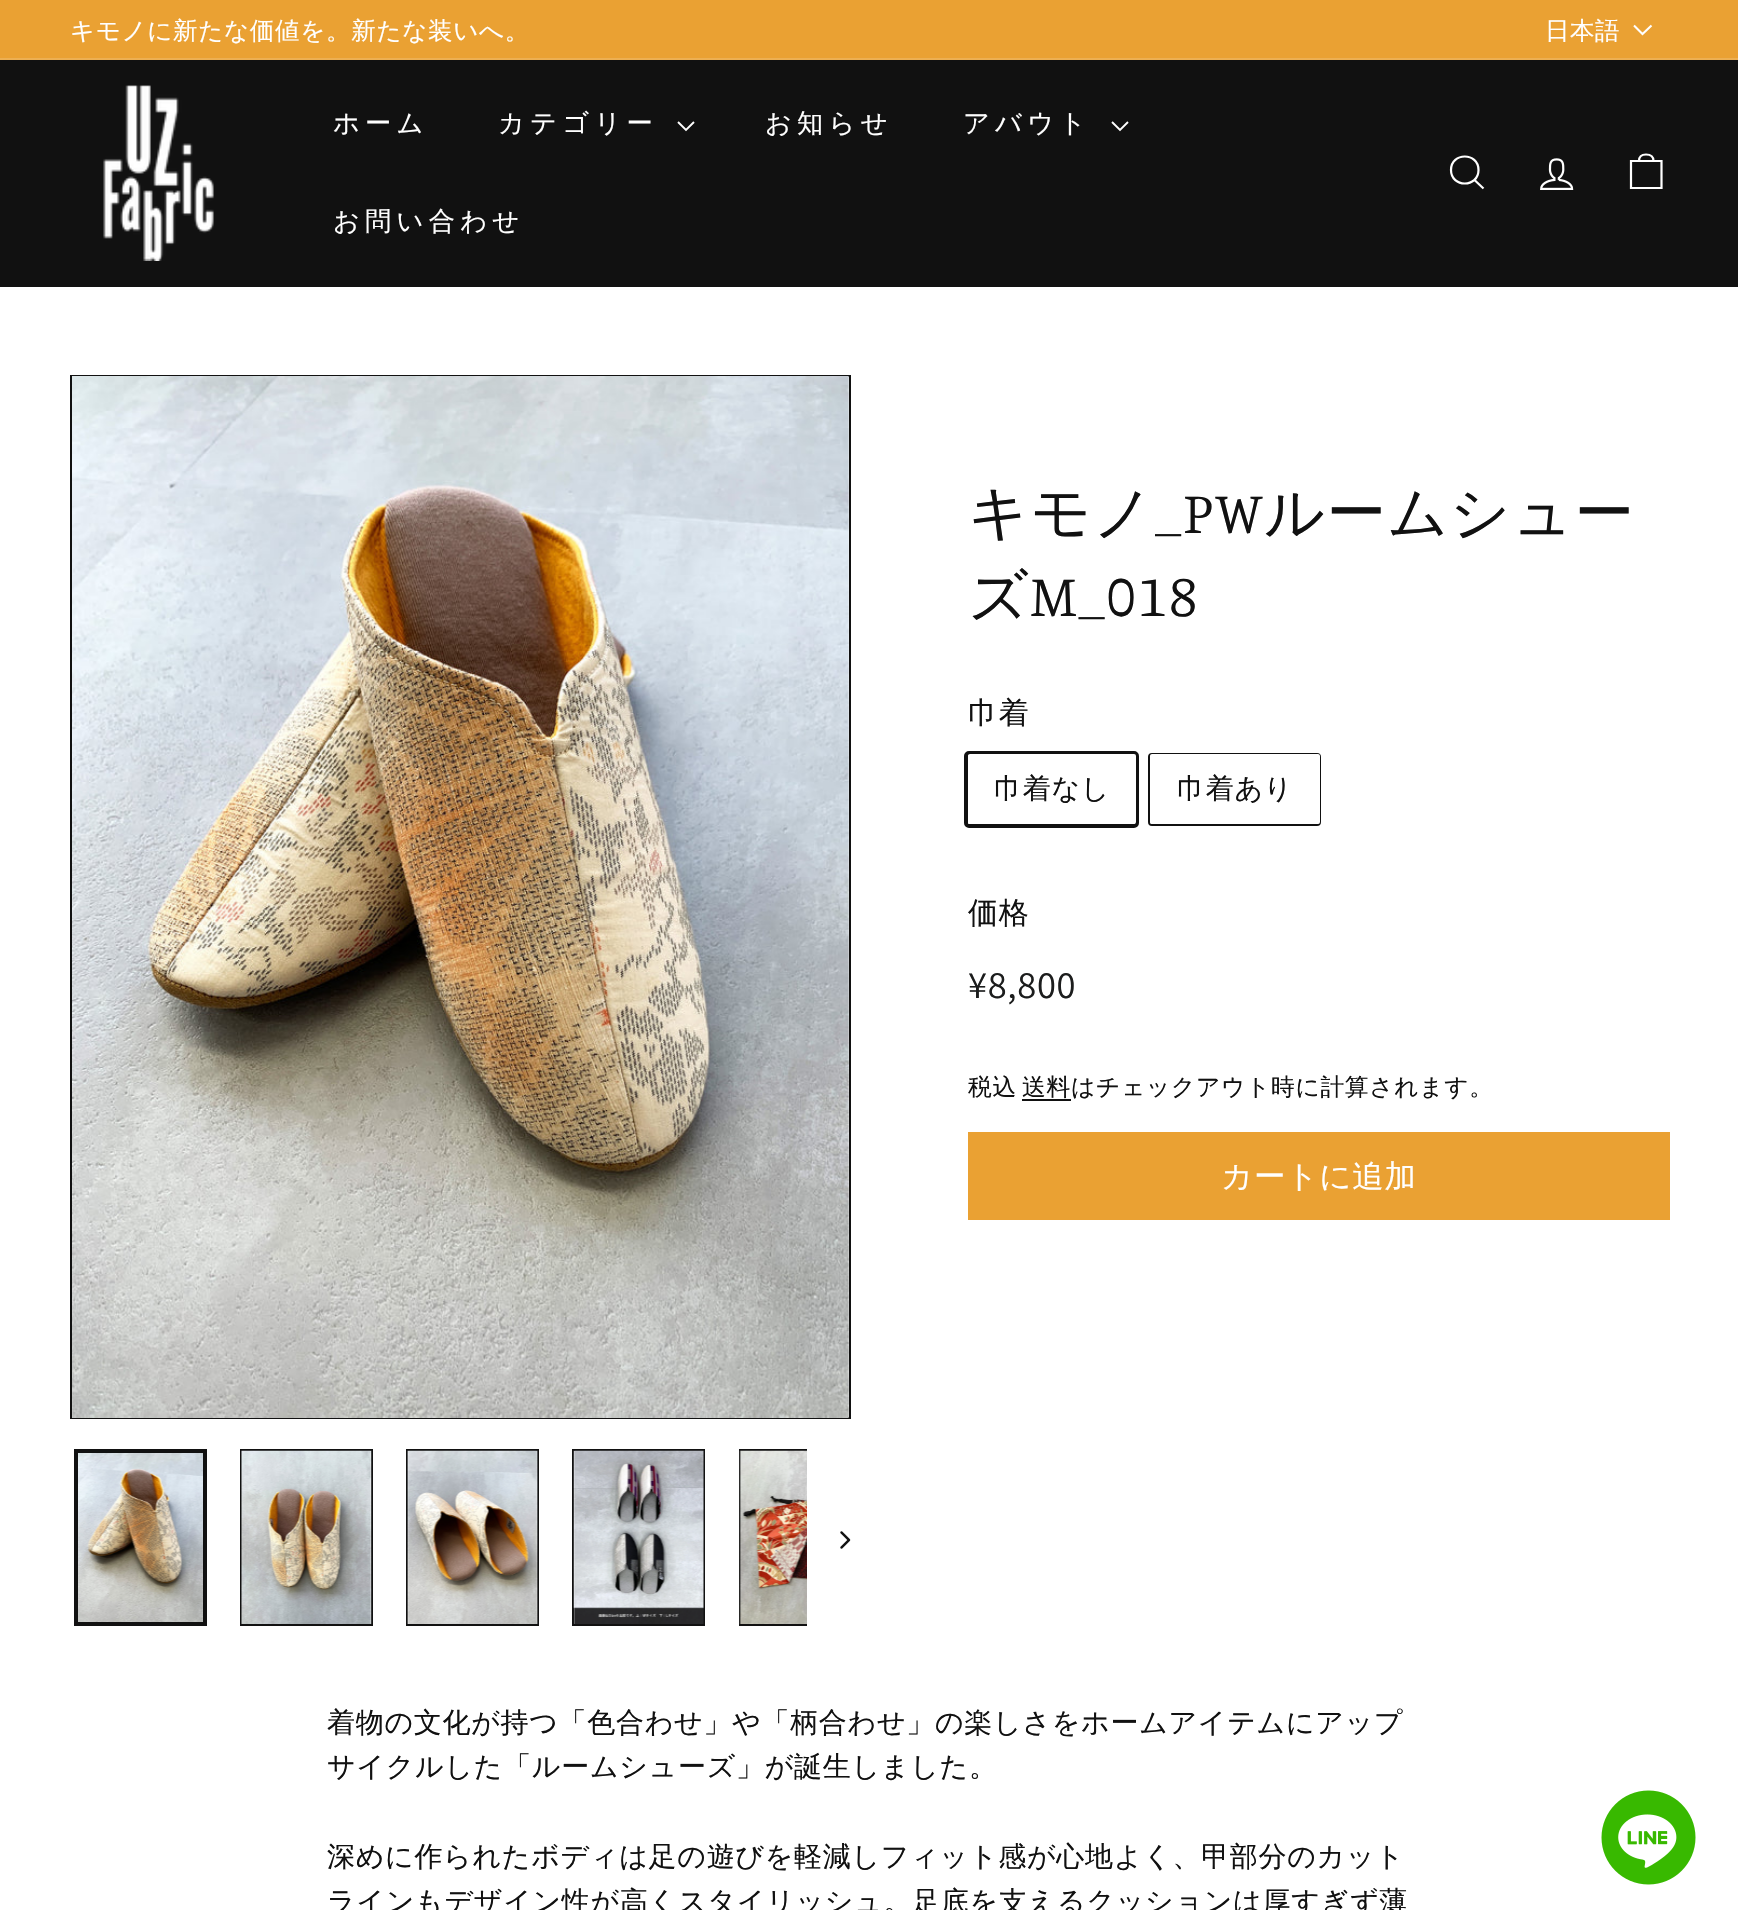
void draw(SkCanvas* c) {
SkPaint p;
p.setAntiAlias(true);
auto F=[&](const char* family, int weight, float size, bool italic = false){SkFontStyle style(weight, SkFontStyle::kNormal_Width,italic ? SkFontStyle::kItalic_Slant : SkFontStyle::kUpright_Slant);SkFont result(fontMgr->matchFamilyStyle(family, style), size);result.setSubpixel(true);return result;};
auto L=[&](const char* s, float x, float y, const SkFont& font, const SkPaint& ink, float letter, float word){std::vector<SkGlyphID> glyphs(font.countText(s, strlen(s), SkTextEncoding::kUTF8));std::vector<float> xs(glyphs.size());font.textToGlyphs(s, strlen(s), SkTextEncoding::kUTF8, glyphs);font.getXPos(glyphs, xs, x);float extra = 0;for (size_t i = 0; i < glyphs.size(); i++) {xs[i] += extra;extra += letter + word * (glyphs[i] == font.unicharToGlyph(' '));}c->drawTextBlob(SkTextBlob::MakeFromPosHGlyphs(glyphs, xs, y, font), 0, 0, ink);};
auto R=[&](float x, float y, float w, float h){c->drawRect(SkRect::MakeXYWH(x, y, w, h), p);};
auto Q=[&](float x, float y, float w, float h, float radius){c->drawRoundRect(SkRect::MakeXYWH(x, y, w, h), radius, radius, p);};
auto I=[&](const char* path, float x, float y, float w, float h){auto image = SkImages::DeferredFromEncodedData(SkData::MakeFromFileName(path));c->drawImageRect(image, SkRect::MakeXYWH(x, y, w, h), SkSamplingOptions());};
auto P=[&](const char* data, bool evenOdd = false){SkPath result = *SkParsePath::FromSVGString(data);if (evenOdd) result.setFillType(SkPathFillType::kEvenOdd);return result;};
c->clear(0xffffffff);
p.setColor(0xffeaa133);
R(0,0,1738,58);
auto f1 = F("WenQuanYi Zen Hei",500,24.5);
p.setColor(0xffffffff);
L("キモノに新たな価値を。新たな装いへ。",70,39,f1,p,.7,0);
L("日本語",1545,39,f1,p,.5,0);
p.setStroke(true);
p.setStrokeWidth(2.1);
c->drawPath(P("M1634 25.5l8.5 8.5l9-8.5"),p);
p.setStroke(false);
p.setColor(0xffedaf52);
R(0,58,1738,2);
p.setColor(0xff111111);
R(0,60,1738,227);
I("1.png",103,85,111,176);
auto f2 = F("WenQuanYi Zen Hei",500,26.25);
p.setColor(0xffffffff);
L("ホーム",333,132,f2,p,5.25,0);
L("カテゴリー",498,132,f2,p,5.25,0);
p.setStroke(true);
p.setStrokeWidth(1.9);
c->drawPath(P("M678 122l8 8l8-8"),p);
p.setStroke(false);
L("お知らせ",765,132,f2,p,5.25,0);
L("アバウト",963,132,f2,p,5.25,0);
p.setStroke(true);
c->drawPath(P("M1112 122l8 8l8-8"),p);
p.setStroke(false);
L("お問い合わせ",333,230,f2,p,5.25,0);
p.setStroke(true);
p.setStrokeWidth(2.2);
c->drawPath(P("M1478.5 170c0 18-27.5 18-27.5 0c0-18 27.5-18 27.5 0m5 18.5l-9-8.5"),p);
I("2.png",1540,158,34,32);
c->drawPath(P("M1639 161c0-5 3-6.5 7-6.5c4 0 7.5 1.5 7.5 6.5m-22.5 0h30.5v27h-30.5z"),p);
p.setStrokeWidth(2);
p.setColor(0xff111111);
c->drawRect(SkRect::MakeXYWH(71,376,779,1042),p);
I("3.png",72,376,777,1042);
I("4.png",78,1453,125,169);
p.setStrokeWidth(4);
c->drawRect(SkRect::MakeXYWH(76,1451,129,173),p);
p.setStrokeWidth(2);
c->drawRect(SkRect::MakeXYWH(241,1450,131,175),p);
I("5.png",241,1450,131,174);
c->drawRect(SkRect::MakeXYWH(407,1450,131,175),p);
I("6.png",407,1450,131,174);
c->drawRect(SkRect::MakeXYWH(573,1450,131,175),p);
I("7.png",573,1450,131,174);
c->save();
c->clipRect(SkRect::MakeXYWH(739,1449,112,177));
c->drawRect(SkRect::MakeXYWH(740,1450,131,175),p);
c->restore();
I("8.png",739,1450,68,174);
p.setStroke(false);
p.setColor(0xffffffff);
R(807,1449,44,177);
I("9.png",840,1531,11,18);
auto f3 = F("WenQuanYi Zen Hei",500,59.5);
p.setColor(0xff111111);
L("キモノ",968,533,f3,p,1.5,0);
auto f4 = F("Manuale",300,59.5);
L("_PW",1155,533,f4,p,1.5,0);
L("ルームシュー",1264,533,f3,p,1.5,0);
L("ズ",968,616,f3,p,1.5,0);
L("M_018",1030,616,f4,p,1.5,0);
auto f5 = F("WenQuanYi Zen Hei",500,30);
L("巾着",968,723,f5,p,.7,0);
p.setStroke(true);
p.setStrokeWidth(4);
c->drawRoundRect(SkRect::MakeXYWH(966,753,171,73),3,3,p);
p.setStroke(false);
p.setColor(0xffffffff);
Q(968,754,168,70,2);
auto f6 = F("WenQuanYi Zen Hei",500,28);
p.setColor(0xff111111);
L("巾着なし",994,798,f6,p,.7,0);
p.setStroke(true);
p.setStrokeWidth(2);
c->drawRoundRect(SkRect::MakeXYWH(1149,754,171,71),3,3,p);
p.setStroke(false);
p.setColor(0xffffffff);
Q(1150,754,170,70,2);
p.setColor(0xff111111);
L("巾着あり",1177,798,f6,p,.7,0);
L("価格",968,923,f5,p,.7,0);
auto f7 = F("Assistant",400,38.5);
p.setColor(0xff1c1d1d);
L("¥8,800",968,998,f7,p,.7,0);
auto f8 = F("WenQuanYi Zen Hei",500,23.75);
p.setColor(0xff111111);
L("税込",968,1095,f8,p,.7,0);
R(1022,1099,49,2);
L("送料はチェックアウト時に計算されます。",1022,1095,f8,p,.7,0);
p.setColor(0xffeaa133);
R(968,1132,702,88);
auto f9 = F("WenQuanYi Zen Hei",500,31.5);
p.setColor(0xffffffff);
L("カートに追加",1221,1187,f9,p,.75,0);
p.setColor(0xff111111);
L("着物の文化が持つ「色合わせ」や「柄合わせ」の楽しさをホームアイテムにアップ",327,1732,f6,p,.7,0);
L("サイクルした「ルームシューズ」が誕生しました。",327,1776,f6,p,.7,0);
L("深めに作られたボディは足の遊びを軽減しフィット感が心地よく、甲部分のカット",327,1866,f6,p,.7,0);
L("ラインもデザイン性が高くスタイリッシュ。足底を支えるクッションは厚すぎず薄",327,1911,f6,p,.7,0);
I("10.png",1601,1790,95,95);
}
